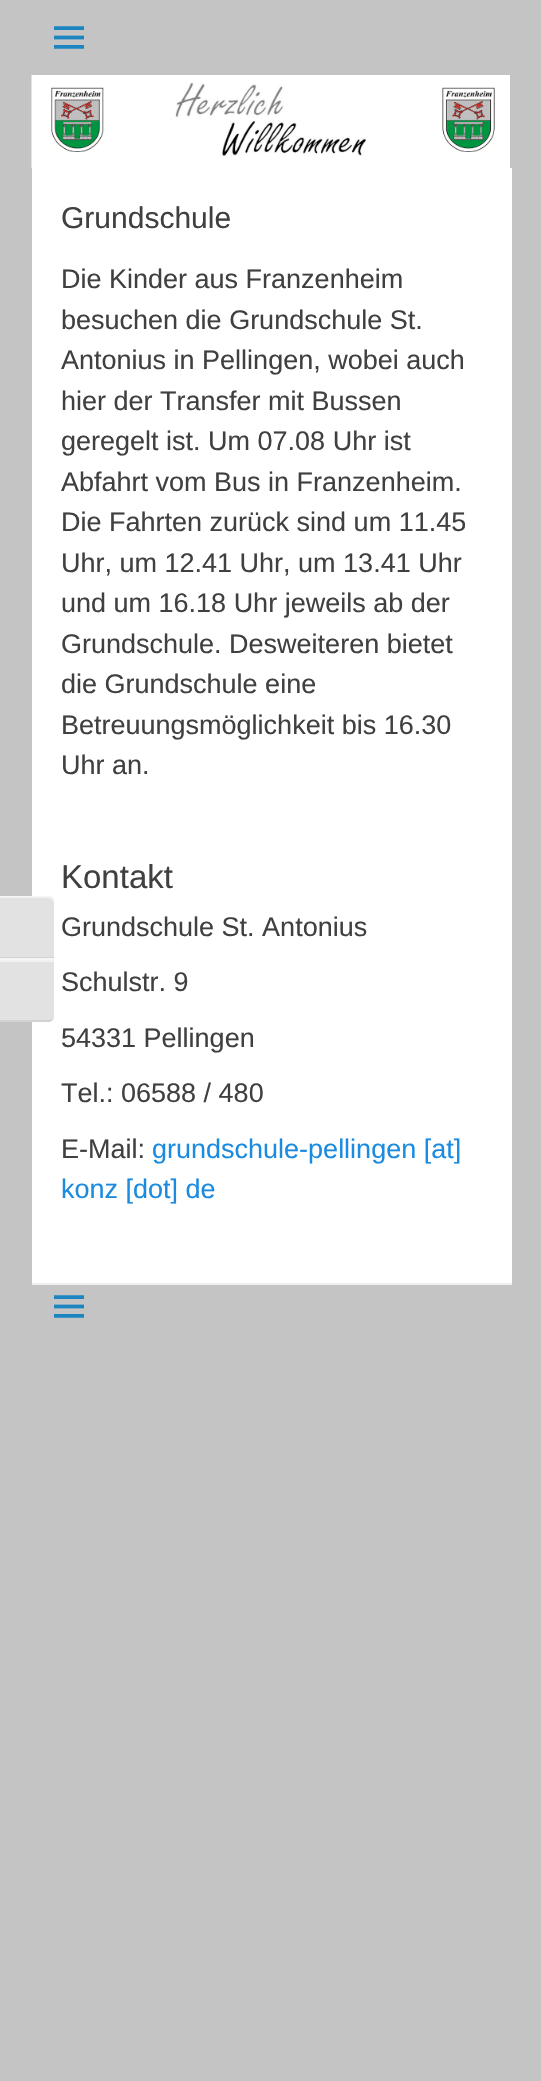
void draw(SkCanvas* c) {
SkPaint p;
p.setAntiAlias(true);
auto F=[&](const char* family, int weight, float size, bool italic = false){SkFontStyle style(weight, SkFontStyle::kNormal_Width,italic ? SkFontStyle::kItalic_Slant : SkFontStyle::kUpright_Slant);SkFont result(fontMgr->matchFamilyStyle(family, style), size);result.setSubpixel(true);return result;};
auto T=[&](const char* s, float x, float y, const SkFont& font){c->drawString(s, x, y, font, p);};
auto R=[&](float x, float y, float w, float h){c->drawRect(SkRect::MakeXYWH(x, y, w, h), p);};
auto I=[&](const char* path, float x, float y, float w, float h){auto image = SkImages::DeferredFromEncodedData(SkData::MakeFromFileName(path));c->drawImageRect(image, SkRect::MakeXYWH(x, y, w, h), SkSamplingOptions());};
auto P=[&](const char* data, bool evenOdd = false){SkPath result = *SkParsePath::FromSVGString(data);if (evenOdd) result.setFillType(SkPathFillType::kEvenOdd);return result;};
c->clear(0xffc4c4c4);
p.setColor(0xffffffff);
R(32,168,480,1115);
p.setColor(0xffe2e2e2);
c->drawPath(P("M0 896h48c3.5 0 6 2.5 6 6v57h-54z"),p);
p.setColor(0x80ffffff);
c->drawPath(P("M0 898h48c3 0 6 3 6 5v-1c0-3-3-5-6-5h-48z"),p);
p.setColor(0xfff5f5f5);
c->drawPath(P("M0 897h48c3 0 6 2 6 5c0-4-3-6-6-6h-48z"),p);
p.setColor(0xffd2d2d2);
R(0,957,54,1);
p.setColor(0xffe2e2e2);
c->drawPath(P("M0 959h54v57c0 3.5-2.5 6-6 6h-48z"),p);
p.setColor(0xfff1f1f1);
R(0,960,54,2);
p.setColor(0xfff5f5f5);
R(0,958,54,2);
p.setColor(0xffd2d2d2);
c->drawPath(P("M50 1022c2-1 4-4 4-6c0 2-3 4-6 4h-48v2z"),p);
I("1.png",54,26,30,23);
I("2.png",31,75,479,93);
auto f1 = F("Liberation Sans",400,30);
p.setColor(0xff404040);
T("Grundschule",61,228,f1);
auto f2 = F("Liberation Sans",400,27);
T("Die Kinder aus Franzenheim",61,288,f2);
T("besuchen die Grundschule St.",61,329,f2);
T("Antonius in Pellingen, wobei auch",61,369,f2);
T("hier der Transfer mit Bussen",61,410,f2);
T("geregelt ist. Um 07.08 Uhr ist",61,450,f2);
T("Abfahrt vom Bus in Franzenheim.",61,491,f2);
T("Die Fahrten zurück sind um 11.45",61,531,f2);
T("Uhr, um 12.41 Uhr, um 13.41 Uhr",61,572,f2);
T("und um 16.18 Uhr jeweils ab der",61,612,f2);
T("Grundschule. Desweiteren bietet",61,653,f2);
T("die Grundschule eine",61,693,f2);
T("Betreuungsmöglichkeit bis 16.30",61,734,f2);
T("Uhr an.",61,774,f2);
auto f3 = F("Liberation Sans",400,33);
T("Kontakt",61,888,f3);
T("Grundschule St. Antonius",61,936,f2);
T("Schulstr. 9",61,991,f2);
T("54331 Pellingen",61,1047,f2);
T("Tel.: 06588 / 480",61,1102,f2);
T("E-Mail:",61,1158,f2);
p.setColor(0xff1b8be0);
T("grundschule-pellingen [at]",152,1158,f2);
T("konz [dot] de",61,1198,f2);
p.setColor(0xffeeeeee);
R(32,1283,480,2);
I("1.png",54,1295,30,23);
}
